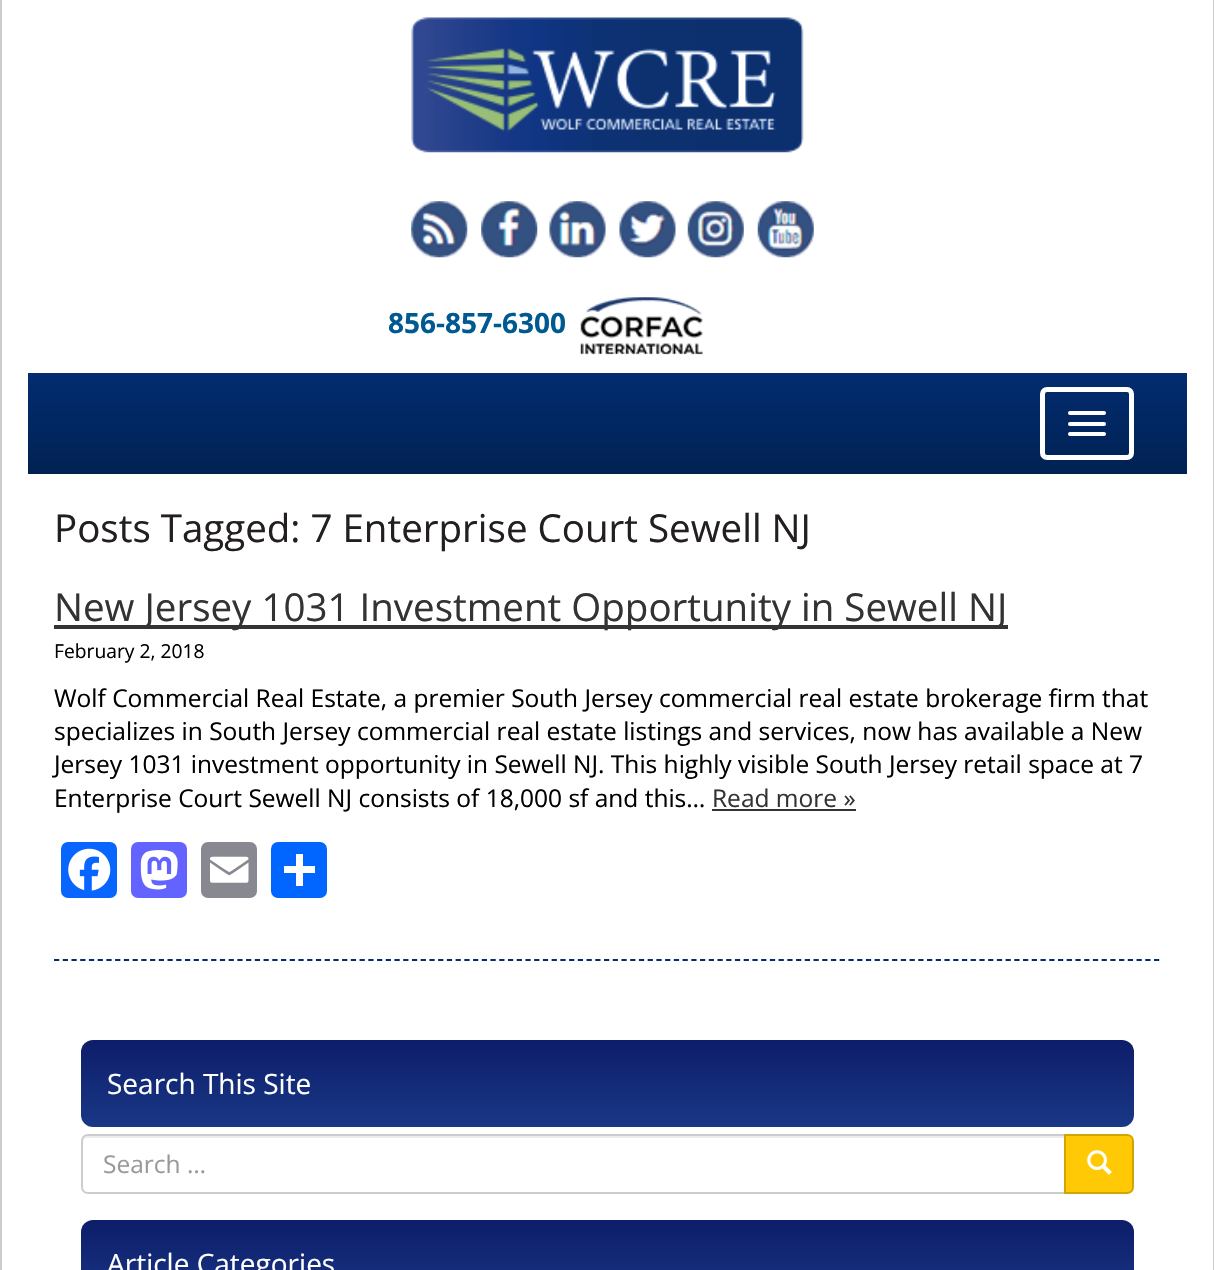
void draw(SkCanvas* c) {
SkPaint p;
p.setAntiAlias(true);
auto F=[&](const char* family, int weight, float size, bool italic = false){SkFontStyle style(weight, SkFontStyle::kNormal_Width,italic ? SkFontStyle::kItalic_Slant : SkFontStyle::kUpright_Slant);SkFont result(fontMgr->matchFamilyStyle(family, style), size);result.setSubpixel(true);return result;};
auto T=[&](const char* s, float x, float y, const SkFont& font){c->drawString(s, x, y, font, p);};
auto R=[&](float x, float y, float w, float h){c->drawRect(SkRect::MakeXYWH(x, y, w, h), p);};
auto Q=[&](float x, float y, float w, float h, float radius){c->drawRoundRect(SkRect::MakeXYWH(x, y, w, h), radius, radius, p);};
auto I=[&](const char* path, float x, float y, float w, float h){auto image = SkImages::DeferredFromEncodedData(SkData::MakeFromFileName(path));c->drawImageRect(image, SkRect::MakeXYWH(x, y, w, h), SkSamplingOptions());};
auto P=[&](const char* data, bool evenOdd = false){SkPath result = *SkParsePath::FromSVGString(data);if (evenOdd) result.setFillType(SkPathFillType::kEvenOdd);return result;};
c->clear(0xffffffff);
p.setColor(0xffcccccc);
R(1213,0,1,1270);
R(0,0,2,1270);
I("1.png",411,17,393,136);
I("2.png",411,201,57,57);
I("3.png",481,201,57,57);
I("4.png",549,201,57,57);
I("5.png",619,201,57,57);
I("6.png",687,201,57,57);
I("7.png",757,201,57,57);
auto f1 = F("Open Sans",700,28);
p.setColor(0xff005991);
T("856-857-6300",388,333,f1);
I("8.png",580,297,123,58);
{
const SkColor colors[] = {0xff022d70,0xff012153};
const float stops[] = {0,1};
const SkPoint ends[] = {{607,373}, {607,474}};
p.setShader(SkGradientShader::MakeLinear(ends, colors, stops, 2, SkTileMode::kClamp));
p.setAlpha(255);
}
R(28,373,1159,101);
p.setStroke(true);
p.setStrokeWidth(5);
p.setShader(nullptr);
p.setColor(0xffffffff);
c->drawRoundRect(SkRect::MakeXYWH(1042.5,389.5,89,68),4.5,4.5,p);
p.setStroke(false);
Q(1068,411,38,4,2);
Q(1068,422,38,4,2);
Q(1068,432,38,4,2);
auto f2 = F("Open Sans",400,38.5);
p.setColor(0xff231f20);
T("Posts Tagged: 7 Enterprise Court Sewell NJ",54,542,f2);
p.setStroke(true);
p.setStrokeWidth(1.8);
p.setColor(0xff022d70);
p.setPathEffect(SkDashPathEffect::Make({{5.25f,3.48f}}, 0));
c->drawPath(P("M54 960h1106"),p);
p.setPathEffect(nullptr);
p.setStroke(false);
p.setColor(0xff333333);
R(54,625,954,4);
T("New Jersey 1031 Investment Opportunity in Sewell NJ",54,621,f2);
auto f3 = F("Open Sans",400,19.25);
p.setColor(0xff000000);
T("February 2, 2018",54,658,f3);
auto f4 = F("Open Sans",400,24.5);
T("Wolf Commercial Real Estate, a premier South Jersey commercial real estate brokerage firm that",54,707,f4);
T("specializes in South Jersey commercial real estate listings and services, now has available a New",54,740,f4);
T("Jersey 1031 investment opportunity in Sewell NJ. This highly visible South Jersey retail space at 7",54,773,f4);
T("Enterprise Court Sewell NJ consists of 18,000 sf and this…",54,807,f4);
p.setColor(0xff333333);
T("Read more »",712,807,f4);
R(712,809,144,2);
p.setColor(0xff0866ff);
Q(61,842,56,56,7);
I("9.png",68,848,43,43);
p.setColor(0xff6364ff);
Q(131,842,56,56,7);
I("10.png",140,850,38,40);
p.setColor(0xff888990);
Q(201,842,56,56,7);
I("11.png",210,856,39,27);
p.setColor(0xff0166ff);
Q(271,842,56,56,7);
p.setColor(0xffffffff);
R(296,854,7,32);
R(284,866,31,7);
{
const SkColor colors[] = {0xff0d1d6a,0xff193886};
const float stops[] = {0,1};
const SkPoint ends[] = {{607,1040}, {607,1127}};
p.setShader(SkGradientShader::MakeLinear(ends, colors, stops, 2, SkTileMode::kClamp));
p.setAlpha(255);
}
Q(81,1040,1053,87,12);
auto f5 = F("Open Sans",400,28);
p.setShader(nullptr);
p.setColor(0xffffffff);
T("Search This Site",107,1094,f5);
p.setColor(0xffececec);
c->drawPath(P("M88 1138h976v-2h-977c-4 0-5 4-5 7c0-3 3-5 6-5z"),p);
p.setStroke(true);
p.setStrokeWidth(2);
p.setColor(0xffcccccc);
c->drawPath(P("M88 1135h977v58h-977c-3.5 0-6-2.5-6-6v-46c0-3.5 2.5-6 6-6z"),p);
p.setStroke(false);
p.setColor(0xff999999);
T("Search …",103,1173,f4);
p.setColor(0xffffca05);
c->drawPath(P("M1065 1135h62c3.5 0 6 2.5 6 6v46c0 3.5-2.5 6-6 6h-62z"),p);
p.setStroke(true);
p.setColor(0xffd1a500);
c->drawPath(P("M1065 1135h62c3.5 0 6 2.5 6 6v46c0 3.5-2.5 6-6 6h-62z"),p);
I("12.png",1087,1150,25,25);
p.setStroke(false);
{
const SkColor colors[] = {0xff0d1d6a,0xff193886};
const float stops[] = {0,1};
const SkPoint ends[] = {{607,1220}, {607,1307}};
p.setShader(SkGradientShader::MakeLinear(ends, colors, stops, 2, SkTileMode::kClamp));
p.setAlpha(255);
}
Q(81,1220,1053,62,12);
p.setShader(nullptr);
p.setColor(0xffffffff);
T("Article Categories",107,1274,f5);
}
